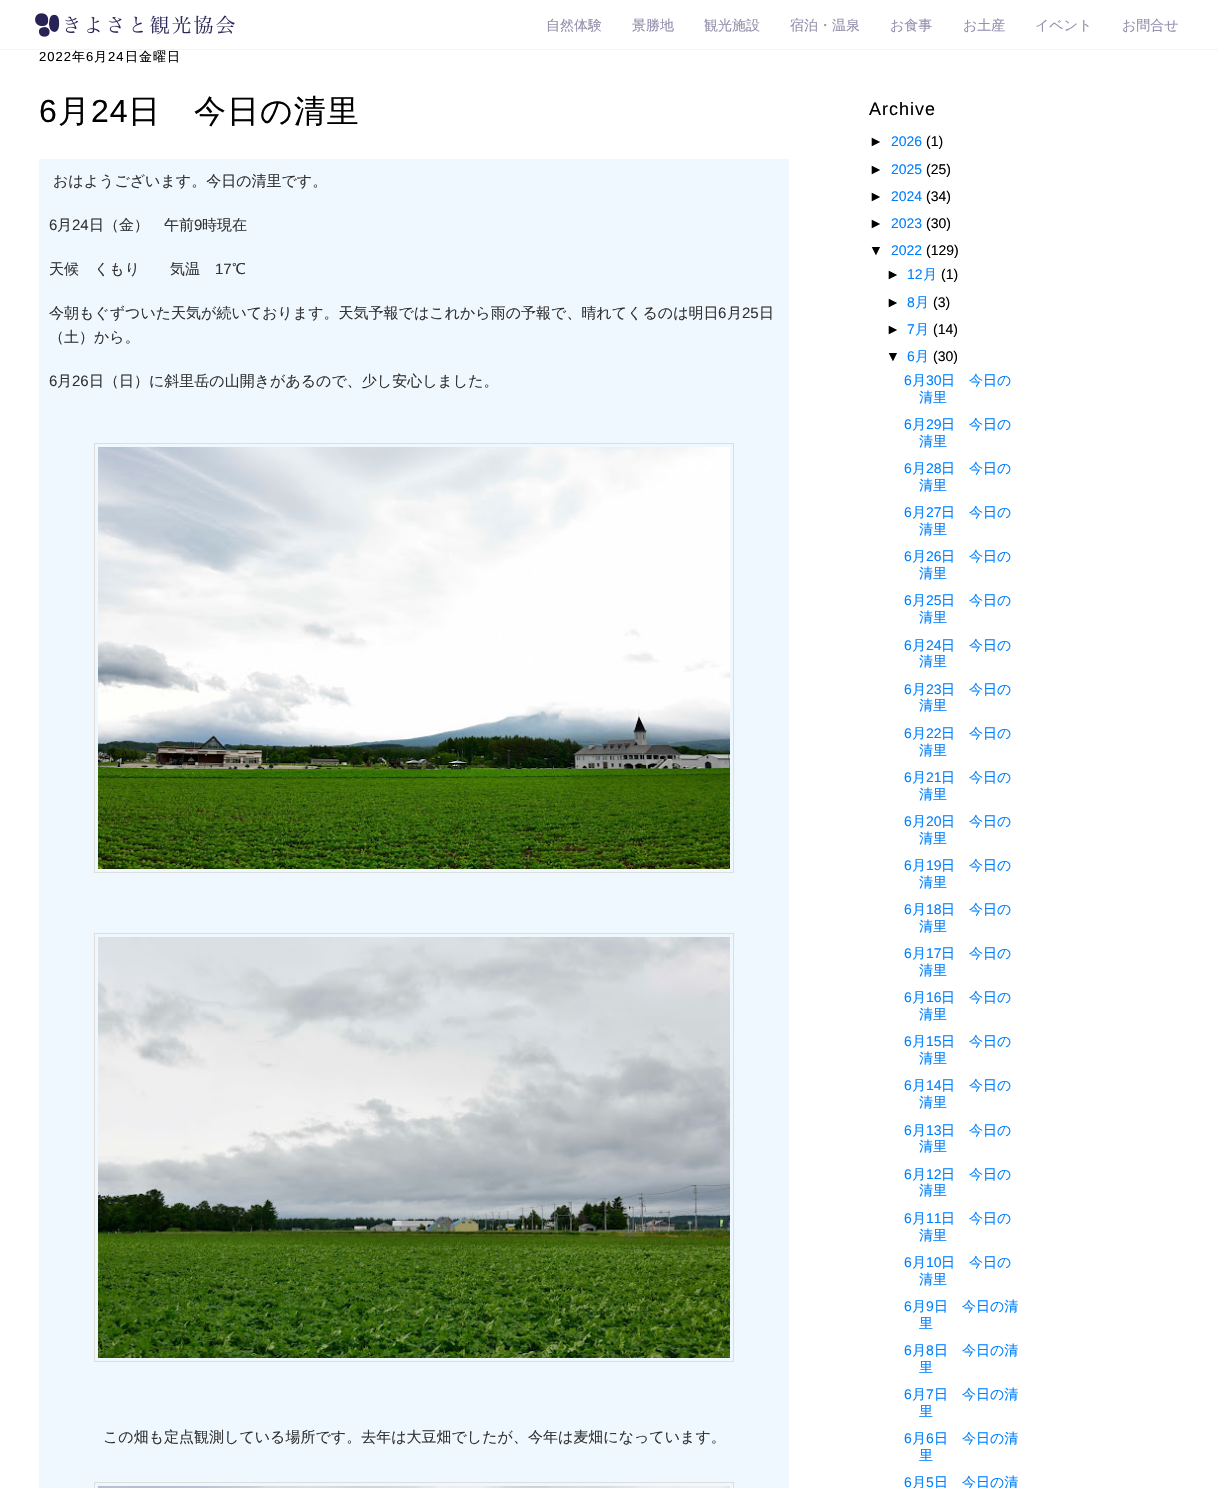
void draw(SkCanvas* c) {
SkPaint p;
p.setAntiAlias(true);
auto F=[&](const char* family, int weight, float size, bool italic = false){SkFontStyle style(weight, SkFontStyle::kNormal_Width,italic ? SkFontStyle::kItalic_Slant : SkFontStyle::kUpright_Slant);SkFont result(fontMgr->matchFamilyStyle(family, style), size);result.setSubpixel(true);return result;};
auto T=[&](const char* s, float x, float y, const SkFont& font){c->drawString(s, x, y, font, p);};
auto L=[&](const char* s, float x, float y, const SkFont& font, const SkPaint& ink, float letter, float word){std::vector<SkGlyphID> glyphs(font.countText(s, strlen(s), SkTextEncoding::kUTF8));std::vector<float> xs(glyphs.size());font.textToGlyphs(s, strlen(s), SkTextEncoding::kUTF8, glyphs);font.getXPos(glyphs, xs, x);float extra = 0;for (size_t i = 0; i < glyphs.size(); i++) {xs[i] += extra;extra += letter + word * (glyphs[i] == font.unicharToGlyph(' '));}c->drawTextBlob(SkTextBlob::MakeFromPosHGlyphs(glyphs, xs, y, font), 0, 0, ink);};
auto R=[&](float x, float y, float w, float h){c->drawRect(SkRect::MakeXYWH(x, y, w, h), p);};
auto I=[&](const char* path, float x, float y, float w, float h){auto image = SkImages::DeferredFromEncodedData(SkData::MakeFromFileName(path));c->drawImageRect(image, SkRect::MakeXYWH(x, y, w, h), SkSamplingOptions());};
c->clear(0xffffffff);
p.setColor(0xfff4f4f4);
R(0,49,1218,1);
I("1.png",35,13,200,24);
auto f1 = F("WenQuanYi Zen Hei",500,14);
p.setColor(0xff938fac);
T("自然体験",546,30,f1);
T("景勝地",632,30,f1);
T("観光施設",704,30,f1);
T("宿泊・温泉",790,30,f1);
T("お食事",890,30,f1);
T("お土産",963,30,f1);
T("イベント",1035,30,f1);
T("お問合せ",1122,30,f1);
auto f2 = F("Liberation Sans",400,13);
p.setColor(0xff000000);
L("2022",39,61,f2,p,1,0);
auto f3 = F("WenQuanYi Zen Hei",500,13);
L("年",72,61,f3,p,1,0);
L("6",86,61,f2,p,1,0);
L("月",94,61,f3,p,1,0);
L("24",108,61,f2,p,1,0);
L("日金曜日",125,61,f3,p,1,0);
auto f4 = F("Liberation Sans",400,32);
L("6",39,122,f4,p,1,0);
auto f5 = F("WenQuanYi Zen Hei",500,32);
L("月",58,122,f5,p,1,0);
L("24",91,122,f4,p,1,0);
L("日　今日の清里",128,122,f5,p,1,0);
p.setColor(0xfff0f8ff);
R(39,159,750,1329);
auto f6 = F("WenQuanYi Zen Hei",500,15);
p.setColor(0xff333333);
T("おはようございます。今日の清里です。",53,186,f6);
auto f7 = F("Liberation Sans",400,15);
T("6",49,230,f7);
T("月",57,230,f6);
T("24",72,230,f7);
T("日（金）　午前",89,230,f6);
T("9",194,230,f7);
T("時現在",202,230,f6);
T("天候　くもり　　気温",49,274,f6);
T("17",215,274,f7);
T("℃",232,274,f6);
T("今朝もぐずついた天気が続いております。天気予報ではこれから雨の予報で、晴れてくるのは明日",49,318,f6);
T("6",718,318,f7);
T("月",727,318,f6);
T("25",742,318,f7);
T("日",759,318,f6);
T("（土）から。",49,342,f6);
T("6",49,386,f7);
T("月",57,386,f6);
T("26",72,386,f7);
T("日（日）に斜里岳の山開きがあるので、少し安心しました。",89,386,f6);
p.setStroke(true);
p.setStrokeWidth(1);
p.setColor(0xffdddddd);
c->drawRect(SkRect::MakeXYWH(94.5,443.5,639,429),p);
I("2.png",98,447,632,422);
c->drawRect(SkRect::MakeXYWH(94.5,933.5,639,428),p);
I("3.png",98,937,632,421);
p.setStroke(false);
p.setColor(0xff333333);
T("この畑も定点観測している場所です。去年は大豆畑でしたが、今年は麦畑になっています。",103,1442,f6);
p.setStroke(true);
p.setColor(0xffdddddd);
c->drawRect(SkRect::MakeXYWH(94.5,1482.5,639,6),p);
I("4.png",98,1486,632,2);
auto f8 = F("Liberation Sans",400,18);
p.setStroke(false);
p.setColor(0xff000000);
L("Archive",869,115,f8,p,1,0);
auto f9 = F("Liberation Sans",400,14);
T("►",869,146,f9);
p.setColor(0xff0080ff);
T("2026",891,146,f9);
p.setColor(0xff000000);
T("(1)",926,146,f9);
T("►",869,174,f9);
p.setColor(0xff0080ff);
T("2025",891,174,f9);
p.setColor(0xff000000);
T("(25)",926,174,f9);
T("►",869,201,f9);
p.setColor(0xff0080ff);
T("2024",891,201,f9);
p.setColor(0xff000000);
T("(34)",926,201,f9);
T("►",869,228,f9);
p.setColor(0xff0080ff);
T("2023",891,228,f9);
p.setColor(0xff000000);
T("(30)",926,228,f9);
T("▼",869,255,f9);
p.setColor(0xff0080ff);
T("2022",891,255,f9);
p.setColor(0xff000000);
T("(129)",926,255,f9);
T("►",886,279,f9);
p.setColor(0xff0080ff);
T("12",907,279,f9);
T("月",923,279,f1);
p.setColor(0xff000000);
T("(1)",941,279,f9);
T("►",886,307,f9);
p.setColor(0xff0080ff);
T("8",907,307,f9);
T("月",915,307,f1);
p.setColor(0xff000000);
T("(3)",933,307,f9);
T("►",886,334,f9);
p.setColor(0xff0080ff);
T("7",907,334,f9);
T("月",915,334,f1);
p.setColor(0xff000000);
T("(14)",933,334,f9);
T("▼",886,361,f9);
p.setColor(0xff0080ff);
T("6",907,361,f9);
T("月",915,361,f1);
p.setColor(0xff000000);
T("(30)",933,361,f9);
p.setColor(0xff0080ff);
T("6",904,385,f9);
T("月",912,385,f1);
T("30",926,385,f9);
T("日　今日の",941,385,f1);
T("清里",919,402,f1);
T("6",904,429,f9);
T("月",912,429,f1);
T("29",926,429,f9);
T("日　今日の",941,429,f1);
T("清里",919,446,f1);
T("6",904,473,f9);
T("月",912,473,f1);
T("28",926,473,f9);
T("日　今日の",941,473,f1);
T("清里",919,490,f1);
T("6",904,517,f9);
T("月",912,517,f1);
T("27",926,517,f9);
T("日　今日の",941,517,f1);
T("清里",919,534,f1);
T("6",904,561,f9);
T("月",912,561,f1);
T("26",926,561,f9);
T("日　今日の",941,561,f1);
T("清里",919,578,f1);
T("6",904,605,f9);
T("月",912,605,f1);
T("25",926,605,f9);
T("日　今日の",941,605,f1);
T("清里",919,622,f1);
T("6",904,650,f9);
T("月",912,650,f1);
T("24",926,650,f9);
T("日　今日の",941,650,f1);
T("清里",919,666,f1);
T("6",904,694,f9);
T("月",912,694,f1);
T("23",926,694,f9);
T("日　今日の",941,694,f1);
T("清里",919,710,f1);
T("6",904,738,f9);
T("月",912,738,f1);
T("22",926,738,f9);
T("日　今日の",941,738,f1);
T("清里",919,755,f1);
T("6",904,782,f9);
T("月",912,782,f1);
T("21",926,782,f9);
T("日　今日の",941,782,f1);
T("清里",919,799,f1);
T("6",904,826,f9);
T("月",912,826,f1);
T("20",926,826,f9);
T("日　今日の",941,826,f1);
T("清里",919,843,f1);
T("6",904,870,f9);
T("月",912,870,f1);
T("19",926,870,f9);
T("日　今日の",941,870,f1);
T("清里",919,887,f1);
T("6",904,914,f9);
T("月",912,914,f1);
T("18",926,914,f9);
T("日　今日の",941,914,f1);
T("清里",919,931,f1);
T("6",904,958,f9);
T("月",912,958,f1);
T("17",926,958,f9);
T("日　今日の",941,958,f1);
T("清里",919,975,f1);
T("6",904,1002,f9);
T("月",912,1002,f1);
T("16",926,1002,f9);
T("日　今日の",941,1002,f1);
T("清里",919,1019,f1);
T("6",904,1046,f9);
T("月",912,1046,f1);
T("15",926,1046,f9);
T("日　今日の",941,1046,f1);
T("清里",919,1063,f1);
T("6",904,1090,f9);
T("月",912,1090,f1);
T("14",926,1090,f9);
T("日　今日の",941,1090,f1);
T("清里",919,1107,f1);
T("6",904,1135,f9);
T("月",912,1135,f1);
T("13",926,1135,f9);
T("日　今日の",941,1135,f1);
T("清里",919,1151,f1);
T("6",904,1179,f9);
T("月",912,1179,f1);
T("12",926,1179,f9);
T("日　今日の",941,1179,f1);
T("清里",919,1195,f1);
T("6",904,1223,f9);
T("月",912,1223,f1);
T("11",926,1223,f9);
T("日　今日の",941,1223,f1);
T("清里",919,1240,f1);
T("6",904,1267,f9);
T("月",912,1267,f1);
T("10",926,1267,f9);
T("日　今日の",941,1267,f1);
T("清里",919,1284,f1);
T("6",904,1311,f9);
T("月",912,1311,f1);
T("9",926,1311,f9);
T("日　今日の清",934,1311,f1);
T("里",919,1328,f1);
T("6",904,1355,f9);
T("月",912,1355,f1);
T("8",926,1355,f9);
T("日　今日の清",934,1355,f1);
T("里",919,1372,f1);
T("6",904,1399,f9);
T("月",912,1399,f1);
T("7",926,1399,f9);
T("日　今日の清",934,1399,f1);
T("里",919,1416,f1);
T("6",904,1443,f9);
T("月",912,1443,f1);
T("6",926,1443,f9);
T("日　今日の清",934,1443,f1);
T("里",919,1460,f1);
T("6",904,1487,f9);
T("月",912,1487,f1);
T("5",926,1487,f9);
T("日　今日の清",934,1487,f1);
}
